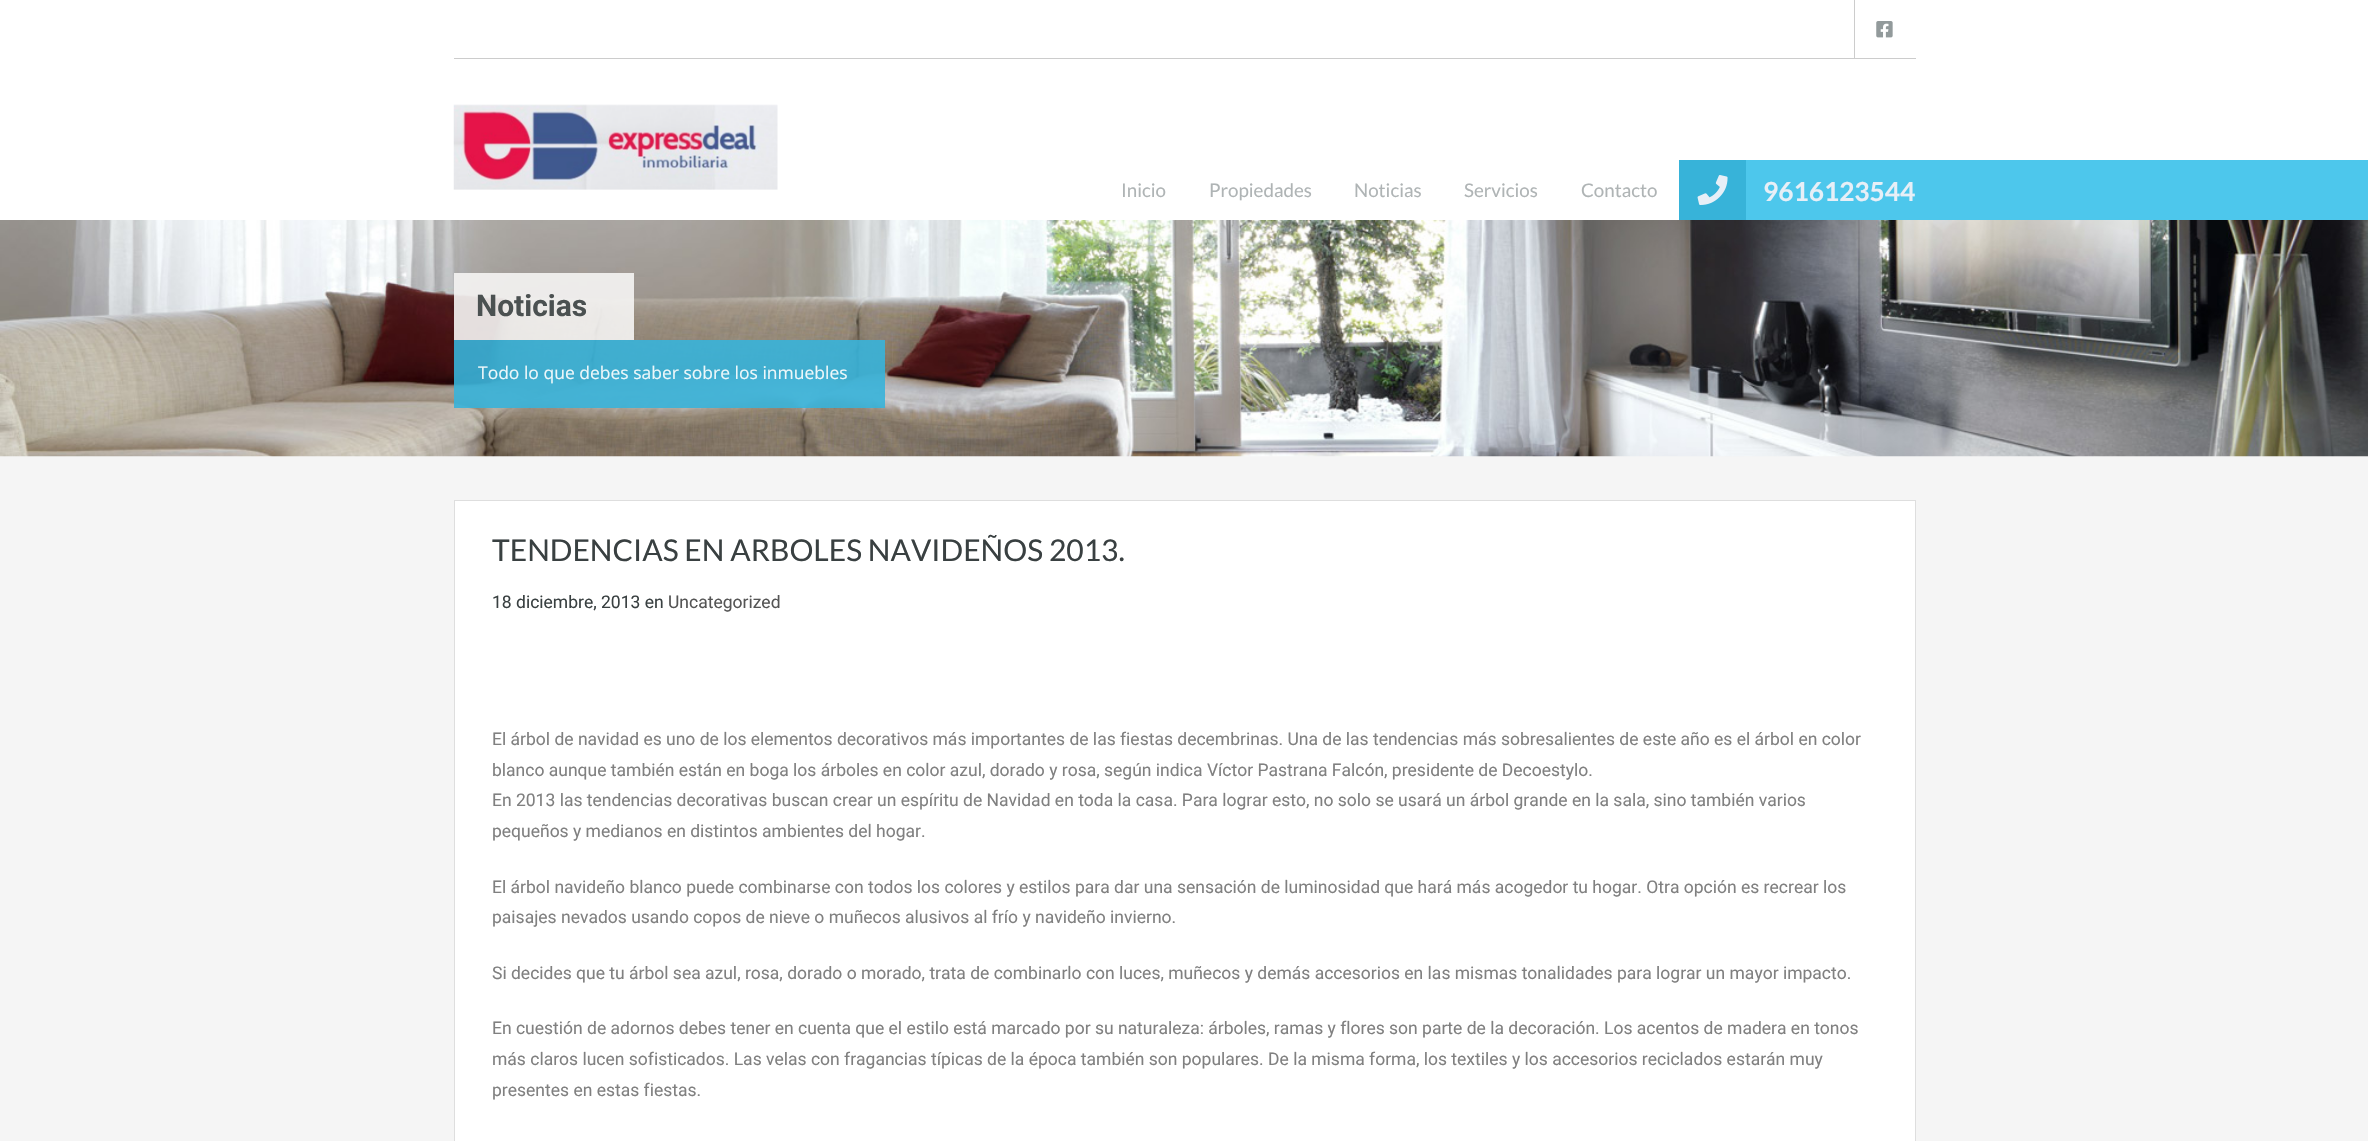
void draw(SkCanvas* c) {
SkPaint p;
p.setAntiAlias(true);
auto F=[&](const char* family, int weight, float size, bool italic = false){SkFontStyle style(weight, SkFontStyle::kNormal_Width,italic ? SkFontStyle::kItalic_Slant : SkFontStyle::kUpright_Slant);SkFont result(fontMgr->matchFamilyStyle(family, style), size);result.setSubpixel(true);return result;};
auto T=[&](const char* s, float x, float y, const SkFont& font){c->drawString(s, x, y, font, p);};
auto R=[&](float x, float y, float w, float h){c->drawRect(SkRect::MakeXYWH(x, y, w, h), p);};
auto I=[&](const char* path, float x, float y, float w, float h){auto image = SkImages::DeferredFromEncodedData(SkData::MakeFromFileName(path));c->drawImageRect(image, SkRect::MakeXYWH(x, y, w, h), SkSamplingOptions());};
c->clear(0xfff5f5f5);
p.setColor(0xffffffff);
R(0,0,2368,220);
p.setColor(0xffcccccc);
R(454,58,1462,1);
R(1854,0,1,58);
I("1.png",1876,21,17,17);
I("2.png",453,104,325,86);
auto f1 = F("Lato",400,18.75);
p.setColor(0xffafb4b5);
T("Inicio",1121,197,f1);
T("Propiedades",1209,197,f1);
T("Noticias",1354,197,f1);
T("Servicios",1464,197,f1);
T("Contacto",1581,197,f1);
p.setColor(0xff4dc7ec);
R(1746,160,622,60);
p.setColor(0xff37b3d9);
R(1679,160,67,60);
I("3.png",1697,175,31,30);
auto f2 = F("Lato",700,26.25);
p.setColor(0xffe7eff7);
T("9616123544",1763,201,f2);
I("4.png",0,220,2368,237);
p.setColor(0xe6f5f4f3);
R(454,273,180,67);
auto f3 = F("Roboto",700,30);
p.setColor(0xff4b5151);
T("Noticias",476,316,f3);
p.setColor(0xe637b3d9);
R(454,340,431,68);
auto f4 = F("Open Sans",400,17.5);
p.setColor(0xffecf7fa);
T("Todo lo que debes saber sobre los inmuebles",478,379,f4);
p.setColor(0xffffffff);
c->drawRect(SkRect::MakeXYWH(454.5,500.5,1461,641),p);
p.setStroke(true);
p.setStrokeWidth(1);
p.setColor(0xffdedede);
c->drawRect(SkRect::MakeXYWH(454.5,500.5,1461,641),p);
auto f5 = F("Lato",400,30);
p.setStroke(false);
p.setColor(0xff394041);
T("TENDENCIAS EN ARBOLES NAVIDEÑOS 2013.",492,561,f5);
auto f6 = F("Roboto",400,17.5);
T("18 diciembre, 2013 en",492,608,f6);
p.setColor(0xff555555);
T("Uncategorized",668,608,f6);
p.setColor(0xff808080);
T("El árbol de navidad es uno de los elementos decorativos más importantes de las fiestas decembrinas. Una de las tendencias más sobresalientes de este año es el árbol en color",492,745,f6);
T("blanco aunque también están en boga los árboles en color azul, dorado y rosa, según indica Víctor Pastrana Falcón, presidente de Decoestylo.",492,776,f6);
T("En 2013 las tendencias decorativas buscan crear un espíritu de Navidad en toda la casa. Para lograr esto, no solo se usará un árbol grande en la sala, sino también varios",492,806,f6);
T("pequeños y medianos en distintos ambientes del hogar.",492,837,f6);
T("El árbol navideño blanco puede combinarse con todos los colores y estilos para dar una sensación de luminosidad que hará más acogedor tu hogar. Otra opción es recrear los",492,893,f6);
T("paisajes nevados usando copos de nieve o muñecos alusivos al frío y navideño invierno.",492,923,f6);
T("Si decides que tu árbol sea azul, rosa, dorado o morado, trata de combinarlo con luces, muñecos y demás accesorios en las mismas tonalidades para lograr un mayor impacto.",492,979,f6);
T("En cuestión de adornos debes tener en cuenta que el estilo está marcado por su naturaleza: árboles, ramas y flores son parte de la decoración. Los acentos de madera en tonos",492,1034,f6);
T("más claros lucen sofisticados. Las velas con fragancias típicas de la época también son populares. De la misma forma, los textiles y los accesorios reciclados estarán muy",492,1065,f6);
T("presentes en estas fiestas.",492,1096,f6);
}
